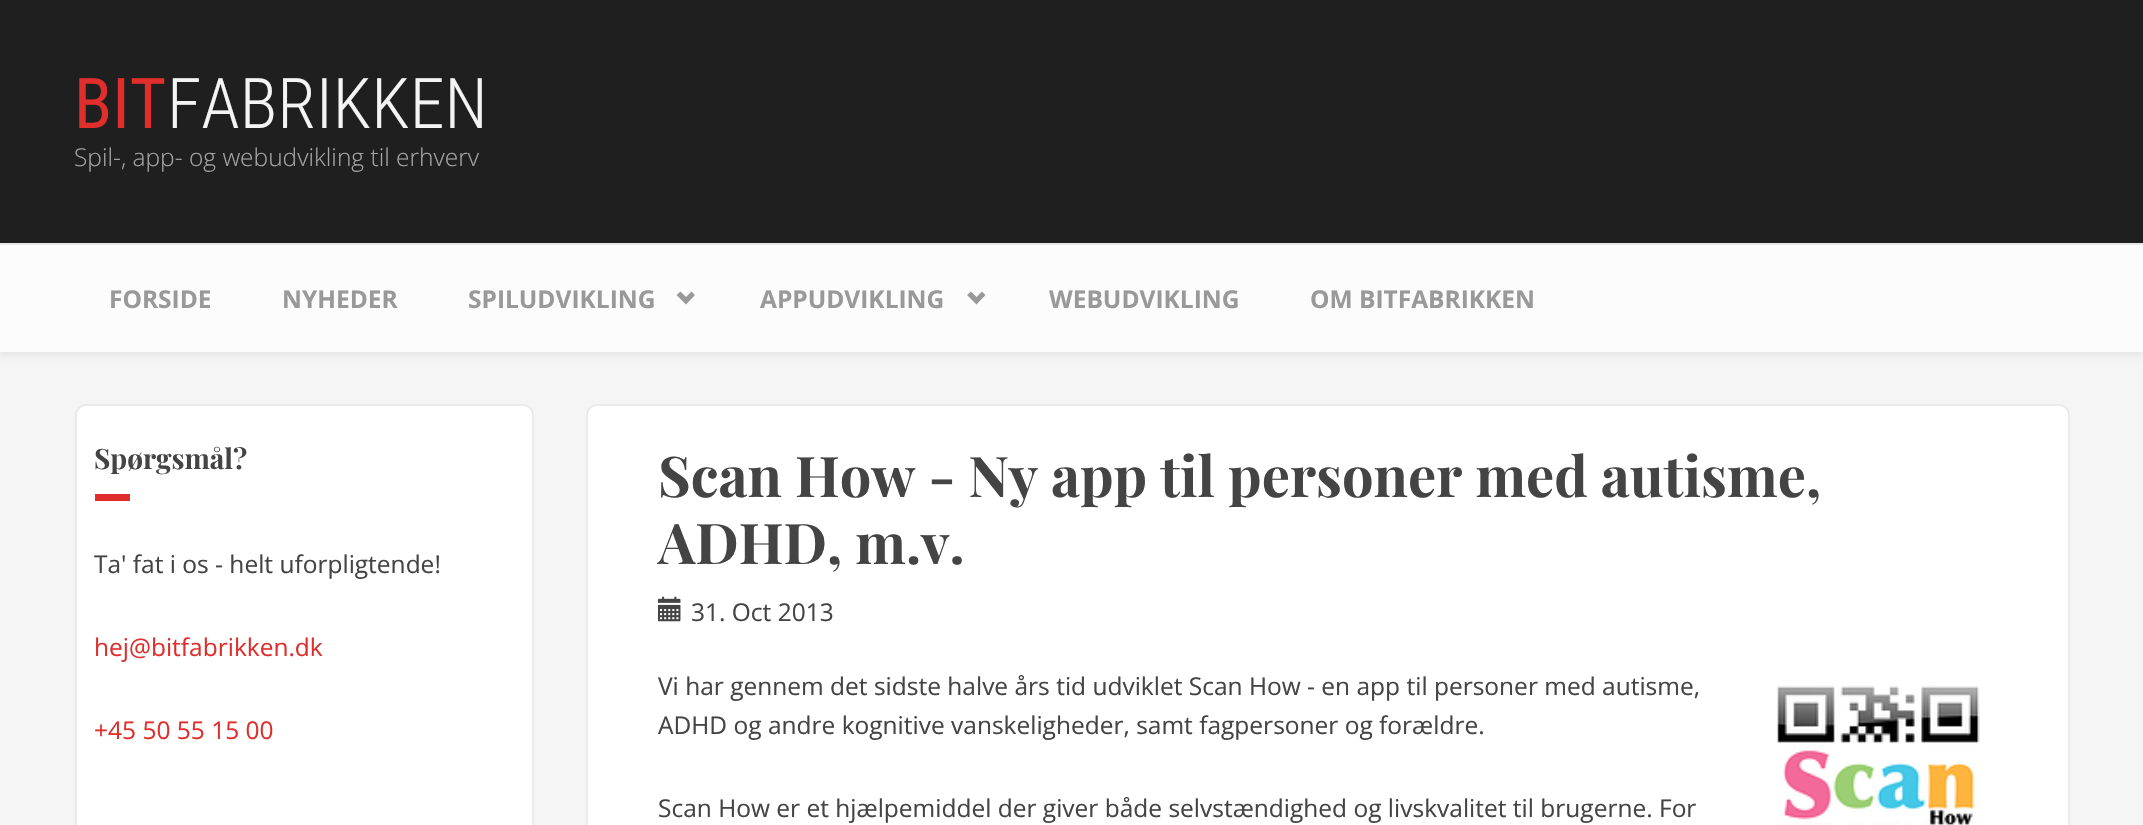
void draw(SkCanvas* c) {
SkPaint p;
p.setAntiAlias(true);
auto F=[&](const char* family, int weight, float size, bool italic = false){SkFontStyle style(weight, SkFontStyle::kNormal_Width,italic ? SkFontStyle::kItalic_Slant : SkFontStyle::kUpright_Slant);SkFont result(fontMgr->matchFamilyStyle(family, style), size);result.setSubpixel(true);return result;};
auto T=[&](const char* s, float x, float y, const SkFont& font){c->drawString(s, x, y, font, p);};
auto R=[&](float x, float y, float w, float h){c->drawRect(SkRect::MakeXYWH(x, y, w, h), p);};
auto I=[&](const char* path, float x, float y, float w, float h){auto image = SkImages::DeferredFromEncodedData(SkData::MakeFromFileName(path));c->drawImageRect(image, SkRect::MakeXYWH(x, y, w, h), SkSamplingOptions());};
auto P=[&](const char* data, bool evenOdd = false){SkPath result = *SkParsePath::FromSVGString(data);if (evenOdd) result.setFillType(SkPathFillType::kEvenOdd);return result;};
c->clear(0xfff5f5f5);
p.setColor(0xff1f1f1f);
R(0,0,2143,243);
p.setColor(0xffeaeaea);
R(0,243,2143,2);
auto f1 = F("Roboto Condensed",400,70);
p.setColor(0xffe02e2c);
T("BIT",74,128,f1);
auto f2 = F("Roboto Condensed",300,70);
p.setColor(0xfff4f4f4);
T("FABRIKKEN",167,128,f2);
auto f3 = F("Open Sans",300,24.5);
p.setColor(0xffa5a5a5);
T("Spil-, app- og webudvikling til erhverv",74,166,f3);
p.setColor(0x12000000);
p.setMaskFilter(SkMaskFilter::MakeBlur(kNormal_SkBlurStyle, 3.5));
c->drawRect(SkRect::MakeXYWH(0,249,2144,106),p);
p.setMaskFilter(nullptr);
p.setColor(0xfffcfcfc);
R(0,245,2143,107);
auto f4 = F("Open Sans",700,24.5);
p.setColor(0xff999999);
T("FORSIDE",109,308,f4);
T("NYHEDER",282,308,f4);
T("SPILUDVIKLING",468,308,f4);
c->drawPath(P("M676.5 295l9.5 9.5l9-9.5l-3.5-3.5l-5.5 5.5l-5.5-5.5z"),p);
T("APPUDVIKLING",760,308,f4);
c->drawPath(P("M967 295l9.5 9.5l9-9.5l-3.5-3.5l-5.5 5.5l-5.5-5.5z"),p);
T("WEBUDVIKLING",1049,308,f4);
T("OM BITFABRIKKEN",1310,308,f4);
p.setColor(0xffffffff);
c->drawRoundRect(SkRect::MakeXYWH(76,405,457,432),10,10,p);
p.setStroke(true);
p.setStrokeWidth(2);
p.setColor(0xffeaeaea);
c->drawRoundRect(SkRect::MakeXYWH(76,405,457,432),10,10,p);
auto f5 = F("Playfair Display",700,28);
p.setStroke(false);
p.setColor(0xff444444);
T("Spørgsmål?",94,469,f5);
p.setColor(0xffe02e2c);
R(95,494,35,7);
auto f6 = F("Open Sans",400,24.5);
p.setColor(0xff444444);
T("Ta' fat i os - helt uforpligtende!",94,573,f6);
p.setColor(0xffe02e2c);
T("hej@bitfabrikken.dk",94,656,f6);
T("+45 50 55 15 00",94,739,f6);
p.setColor(0xffffffff);
c->drawRoundRect(SkRect::MakeXYWH(587,405,1482,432),10,10,p);
p.setStroke(true);
p.setColor(0xffeaeaea);
c->drawRoundRect(SkRect::MakeXYWH(587,405,1482,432),10,10,p);
auto f7 = F("Playfair Display",700,56);
p.setStroke(false);
p.setColor(0xff444444);
T("Scan How - Ny app til personer med autisme,",658,497,f7);
T("ADHD, m.v.",658,564,f7);
I("1.png",658,596,23,26);
T("31. Oct 2013",691,621,f6);
T("Vi har gennem det sidste halve års tid udviklet Scan How - en app til personer med autisme,",658,695,f6);
I("2.png",1776,685,204,140);
T("ADHD og andre kognitive vanskeligheder, samt fagpersoner og forældre.",658,734,f6);
T("Scan How er et hjælpemiddel der giver både selvstændighed og livskvalitet til brugerne. For",658,817,f6);
}
